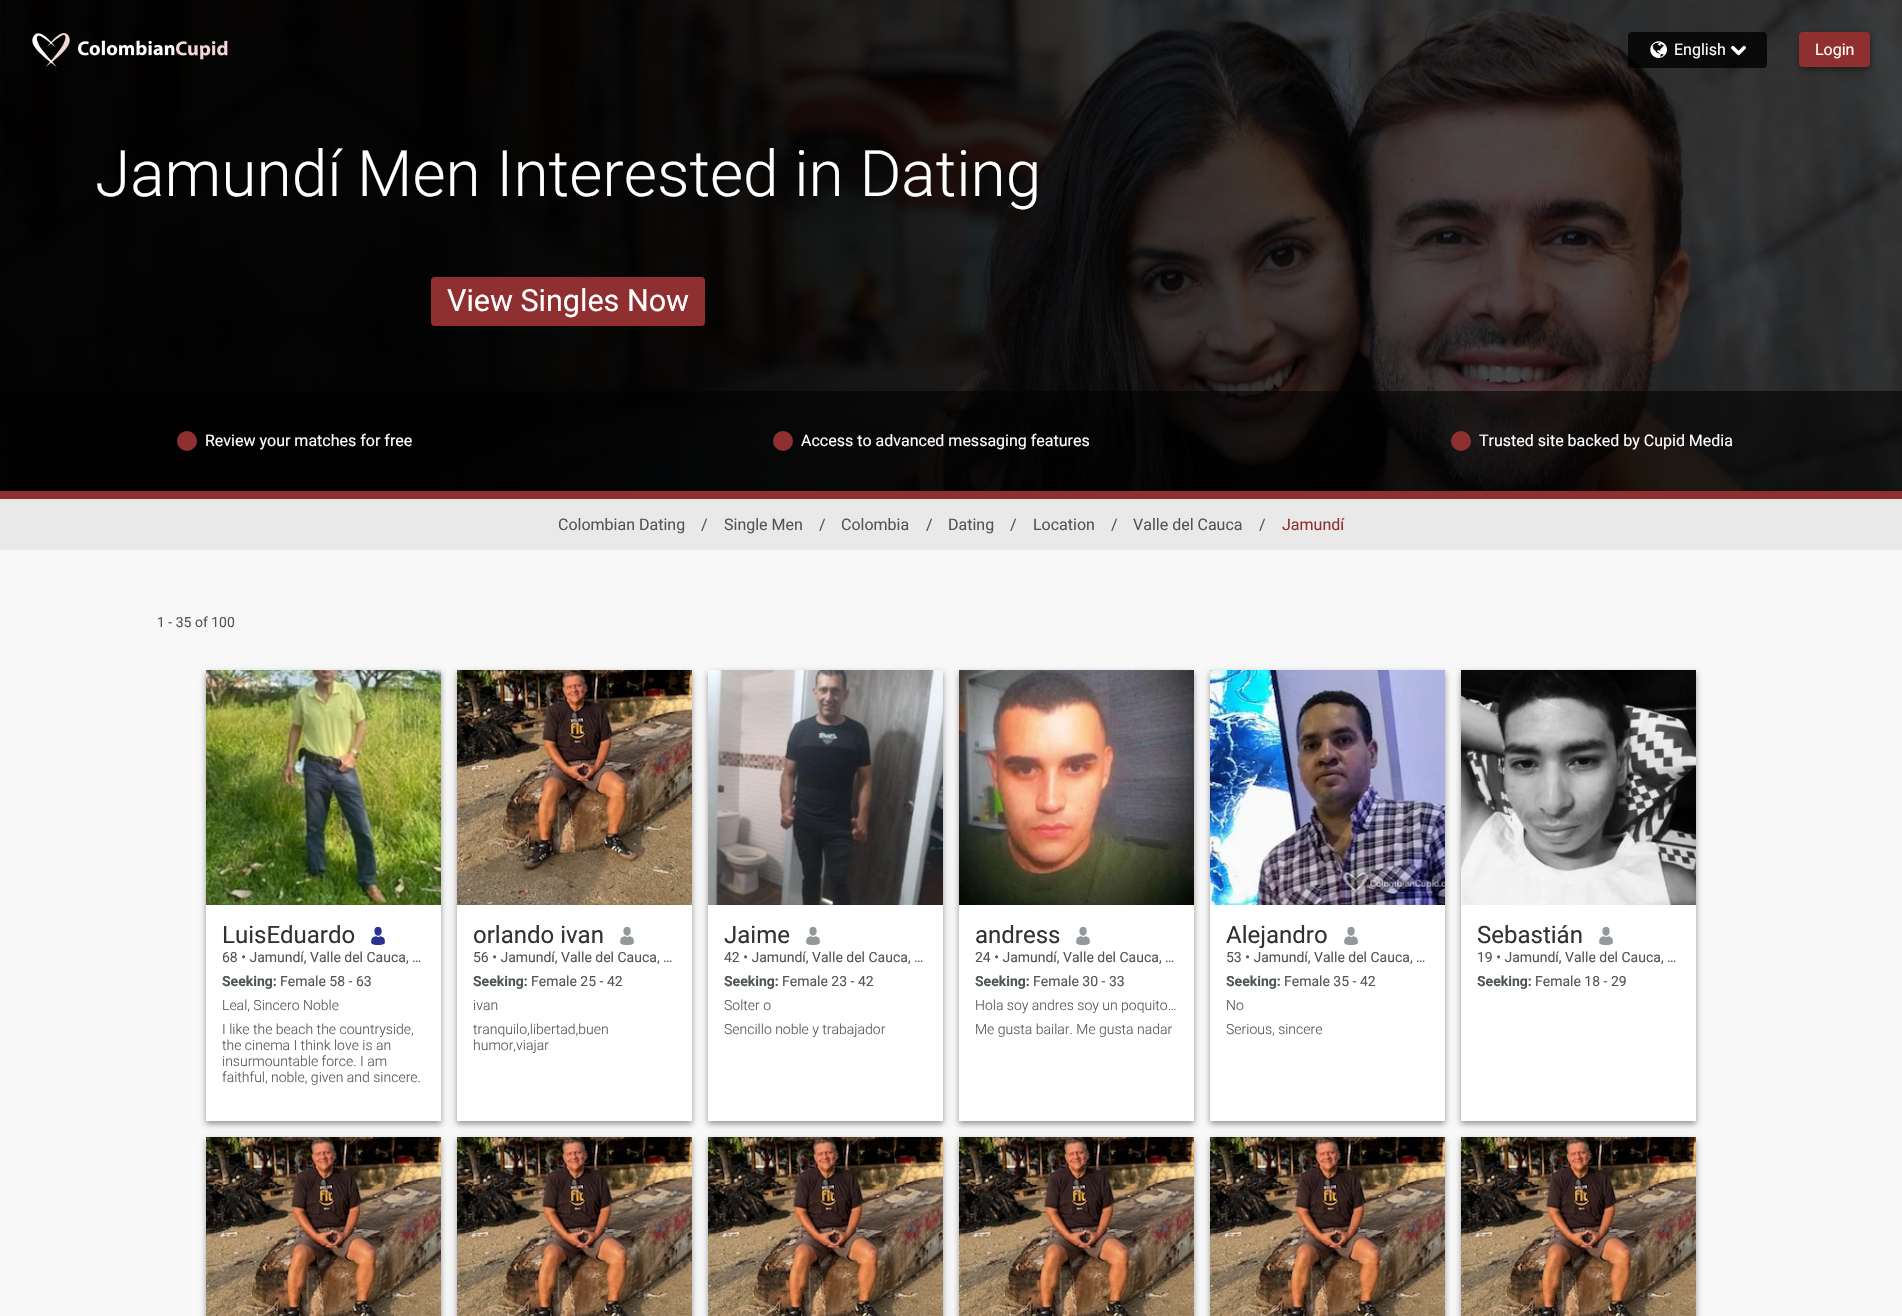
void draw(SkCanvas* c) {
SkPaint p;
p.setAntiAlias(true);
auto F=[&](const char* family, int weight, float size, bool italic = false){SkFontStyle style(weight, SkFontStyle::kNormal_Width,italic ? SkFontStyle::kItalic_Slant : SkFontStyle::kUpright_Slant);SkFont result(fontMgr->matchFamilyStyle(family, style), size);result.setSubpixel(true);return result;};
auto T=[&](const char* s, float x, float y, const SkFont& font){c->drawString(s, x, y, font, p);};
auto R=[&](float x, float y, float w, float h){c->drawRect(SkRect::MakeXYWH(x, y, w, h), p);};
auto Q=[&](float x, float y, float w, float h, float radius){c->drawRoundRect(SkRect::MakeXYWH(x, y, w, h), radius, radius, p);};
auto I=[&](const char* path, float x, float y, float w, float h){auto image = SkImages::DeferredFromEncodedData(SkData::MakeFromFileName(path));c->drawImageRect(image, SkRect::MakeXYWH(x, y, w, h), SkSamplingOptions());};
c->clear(0xfff8f8f8);
I("5.png",0,0,1902,491);
I("1.png",32,33,38,34);
I("2.png",78,40,150,20);
p.setColor(0xcc000000);
Q(1628,32,139,36,4);
I("3.png",1650,41,17,17);
auto f1 = F("Roboto",400,16);
p.setColor(0xffffffff);
T("English",1674,55,f1);
I("4.png",1731,45,15,11);
p.setColor(0x66000000);
p.setMaskFilter(SkMaskFilter::MakeBlur(kNormal_SkBlurStyle, 3));
c->drawRoundRect(SkRect::MakeXYWH(1799,35,71,35),4,4,p);
p.setMaskFilter(nullptr);
p.setColor(0xff902f2f);
Q(1799,32,71,35,4);
p.setColor(0xffffffff);
T("Login",1815,55,f1);
auto f2 = F("Roboto",300,64);
T("Jamundí Men Interested in Dating",95,196,f2);
p.setColor(0xff902f2f);
Q(431,277,274,49,4);
auto f3 = F("Roboto",400,30.5);
p.setColor(0xffffffff);
T("View Singles Now",447,311,f3);
p.setColor(0x99000000);
R(0,391,1902,100);
p.setColor(0xff902f2f);
c->drawCircle(187,441,10,p);
p.setColor(0xffffffff);
T("Review your matches for free",205,446,f1);
p.setColor(0xff902f2f);
c->drawCircle(783,441,10,p);
p.setColor(0xffffffff);
T("Access to advanced messaging features",801,446,f1);
p.setColor(0xff902f2f);
c->drawCircle(1461,441,10,p);
p.setColor(0xffffffff);
T("Trusted site backed by Cupid Media",1479,446,f1);
p.setColor(0xff902f2f);
R(0,491,1902,8);
p.setColor(0xffe9e9e9);
R(0,499,1902,51);
p.setColor(0xff505656);
T("Colombian Dating",558,530,f1);
T("/",701,530,f1);
T("Single Men",724,530,f1);
T("/",819,530,f1);
T("Colombia",841,530,f1);
T("/",926,530,f1);
T("Dating",948,530,f1);
T("/",1010,530,f1);
T("Location",1033,530,f1);
T("/",1111,530,f1);
T("Valle del Cauca",1133,530,f1);
T("/",1259,530,f1);
p.setColor(0xff902f2f);
T("Jamundí",1282,530,f1);
auto f4 = F("Roboto",400,14);
p.setColor(0xff505656);
T("1 - 35 of 100",157,627,f4);
p.setColor(0x66000000);
p.setMaskFilter(SkMaskFilter::MakeBlur(kNormal_SkBlurStyle, 3));
c->drawRect(SkRect::MakeXYWH(206,673,235,451),p);
p.setMaskFilter(nullptr);
p.setColor(0xffffffff);
R(206,905,235,216);
I("6.png",206,670,235,235);
auto f5 = F("Roboto",400,24);
p.setColor(0xff323232);
T("LuisEduardo",222,943,f5);
I("7.png",371,927,14,18);
p.setColor(0xff505656);
T("68 • Jamundí, Valle del Cauca, …",222,962,f4);
auto f6 = F("Roboto",700,14);
T("Seeking:",222,986,f6);
T("Female 58 - 63",280,986,f4);
auto f7 = F("Roboto",300,14);
T("Leal, Sincero Noble",222,1010,f7);
T("I like the beach the countryside,",222,1034,f7);
T("the cinema I think love is an",222,1050,f7);
T("insurmountable force. I am",222,1066,f7);
T("faithful, noble, given and sincere.",222,1082,f7);
p.setColor(0x66000000);
p.setMaskFilter(SkMaskFilter::MakeBlur(kNormal_SkBlurStyle, 3));
c->drawRect(SkRect::MakeXYWH(457,673,235,451),p);
p.setMaskFilter(nullptr);
p.setColor(0xffffffff);
R(457,905,235,216);
I("8.png",457,670,235,235);
p.setColor(0xff323232);
T("orlando ivan",473,943,f5);
I("9.png",620,927,14,18);
p.setColor(0xff505656);
T("56 • Jamundí, Valle del Cauca, …",473,962,f4);
T("Seeking:",473,986,f6);
T("Female 25 - 42",531,986,f4);
T("ivan",473,1010,f7);
T("tranquilo,libertad,buen",473,1034,f7);
T("humor,viajar",473,1050,f7);
p.setColor(0x66000000);
p.setMaskFilter(SkMaskFilter::MakeBlur(kNormal_SkBlurStyle, 3));
c->drawRect(SkRect::MakeXYWH(708,673,235,451),p);
p.setMaskFilter(nullptr);
p.setColor(0xffffffff);
R(708,905,235,216);
I("10.png",708,670,235,235);
p.setColor(0xff323232);
T("Jaime",724,943,f5);
I("9.png",806,927,14,18);
p.setColor(0xff505656);
T("42 • Jamundí, Valle del Cauca, …",724,962,f4);
T("Seeking:",724,986,f6);
T("Female 23 - 42",782,986,f4);
T("Solter o",724,1010,f7);
T("Sencillo noble y trabajador",724,1034,f7);
p.setColor(0x66000000);
p.setMaskFilter(SkMaskFilter::MakeBlur(kNormal_SkBlurStyle, 3));
c->drawRect(SkRect::MakeXYWH(959,673,235,451),p);
p.setMaskFilter(nullptr);
p.setColor(0xffffffff);
R(959,905,235,216);
I("11.png",959,670,235,235);
p.setColor(0xff323232);
T("andress",975,943,f5);
I("9.png",1076,927,14,18);
p.setColor(0xff505656);
T("24 • Jamundí, Valle del Cauca, …",975,962,f4);
T("Seeking:",975,986,f6);
T("Female 30 - 33",1033,986,f4);
T("Hola soy andres soy un poquito…",975,1010,f7);
T("Me gusta bailar. Me gusta nadar",975,1034,f7);
p.setColor(0x66000000);
p.setMaskFilter(SkMaskFilter::MakeBlur(kNormal_SkBlurStyle, 3));
c->drawRect(SkRect::MakeXYWH(1210,673,235,451),p);
p.setMaskFilter(nullptr);
p.setColor(0xffffffff);
R(1210,905,235,216);
I("12.png",1210,670,235,235);
p.setColor(0xff323232);
T("Alejandro",1226,943,f5);
I("9.png",1344,927,14,18);
p.setColor(0xff505656);
T("53 • Jamundí, Valle del Cauca, …",1226,962,f4);
T("Seeking:",1226,986,f6);
T("Female 35 - 42",1284,986,f4);
T("No",1226,1010,f7);
T("Serious, sincere",1226,1034,f7);
p.setColor(0x66000000);
p.setMaskFilter(SkMaskFilter::MakeBlur(kNormal_SkBlurStyle, 3));
c->drawRect(SkRect::MakeXYWH(1461,673,235,451),p);
p.setMaskFilter(nullptr);
p.setColor(0xffffffff);
R(1461,905,235,216);
I("13.png",1461,670,235,235);
p.setColor(0xff323232);
T("Sebastián",1477,943,f5);
I("9.png",1599,927,14,18);
p.setColor(0xff505656);
T("19 • Jamundí, Valle del Cauca, …",1477,962,f4);
T("Seeking:",1477,986,f6);
T("Female 18 - 29",1535,986,f4);
p.setColor(0x66000000);
p.setMaskFilter(SkMaskFilter::MakeBlur(kNormal_SkBlurStyle, 3));
c->drawRect(SkRect::MakeXYWH(206,1140,235,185),p);
p.setMaskFilter(nullptr);
I("14.png",206,1137,235,179);
p.setMaskFilter(SkMaskFilter::MakeBlur(kNormal_SkBlurStyle, 3));
c->drawRect(SkRect::MakeXYWH(457,1140,235,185),p);
p.setMaskFilter(nullptr);
I("15.png",457,1137,235,179);
p.setMaskFilter(SkMaskFilter::MakeBlur(kNormal_SkBlurStyle, 3));
c->drawRect(SkRect::MakeXYWH(708,1140,235,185),p);
p.setMaskFilter(nullptr);
I("14.png",708,1137,235,179);
p.setMaskFilter(SkMaskFilter::MakeBlur(kNormal_SkBlurStyle, 3));
c->drawRect(SkRect::MakeXYWH(959,1140,235,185),p);
p.setMaskFilter(nullptr);
I("15.png",959,1137,235,179);
p.setMaskFilter(SkMaskFilter::MakeBlur(kNormal_SkBlurStyle, 3));
c->drawRect(SkRect::MakeXYWH(1210,1140,235,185),p);
p.setMaskFilter(nullptr);
I("14.png",1210,1137,235,179);
p.setMaskFilter(SkMaskFilter::MakeBlur(kNormal_SkBlurStyle, 3));
c->drawRect(SkRect::MakeXYWH(1461,1140,235,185),p);
p.setMaskFilter(nullptr);
I("16.png",1461,1137,235,179);
}
